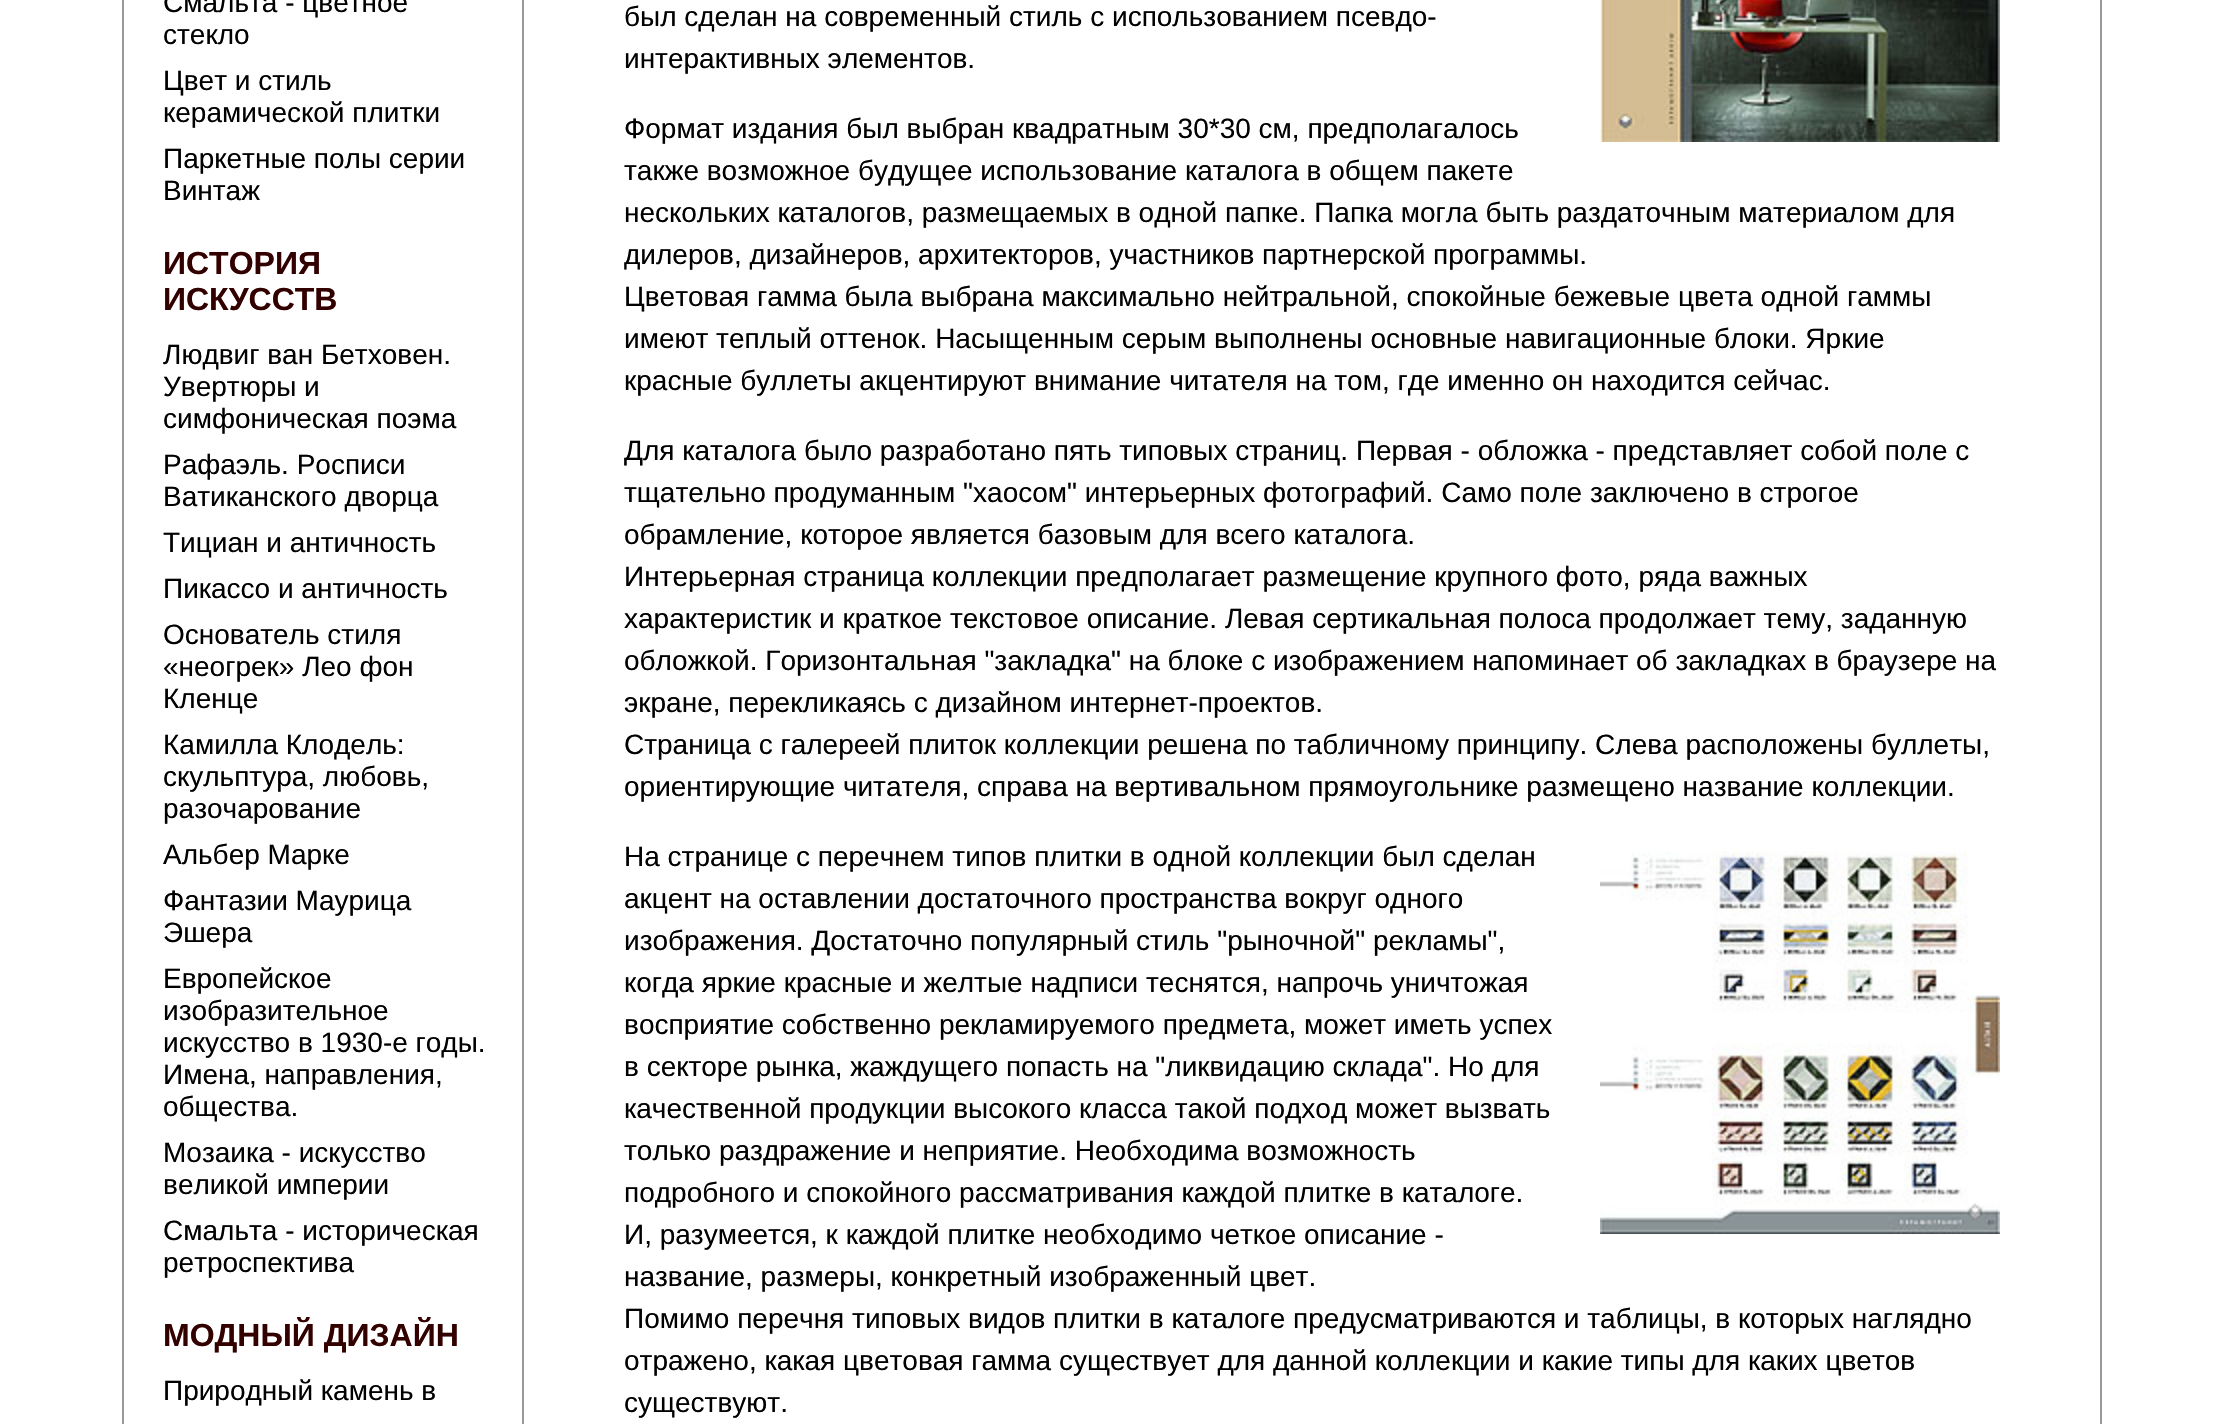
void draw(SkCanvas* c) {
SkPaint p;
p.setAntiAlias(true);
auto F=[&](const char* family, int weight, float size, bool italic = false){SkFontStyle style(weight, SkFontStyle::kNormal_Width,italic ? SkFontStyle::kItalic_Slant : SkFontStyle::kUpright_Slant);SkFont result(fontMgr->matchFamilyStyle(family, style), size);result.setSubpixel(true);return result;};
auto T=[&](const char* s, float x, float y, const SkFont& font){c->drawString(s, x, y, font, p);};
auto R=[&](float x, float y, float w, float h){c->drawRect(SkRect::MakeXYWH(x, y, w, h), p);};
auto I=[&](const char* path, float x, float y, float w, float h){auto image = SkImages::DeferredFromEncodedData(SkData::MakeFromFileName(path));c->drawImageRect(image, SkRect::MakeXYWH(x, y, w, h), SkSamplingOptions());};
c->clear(0xffffffff);
p.setColor(0xff999999);
R(522,0,2,1424);
R(122,0,2,1424);
auto f1 = F("Liberation Sans",400,28);
p.setColor(0xff000000);
T("Смальта - цветное",163,12,f1);
T("стекло",163,44,f1);
T("Цвет и стиль",163,90,f1);
T("керамической плитки",163,122,f1);
T("Паркетные полы серии",163,168,f1);
T("Винтаж",163,200,f1);
auto f2 = F("Liberation Sans",700,32);
p.setColor(0xff330000);
T("ИСТОРИЯ",163,274,f2);
T("ИСКУССТВ",163,310,f2);
p.setColor(0xff000000);
T("Людвиг ван Бетховен.",163,364,f1);
T("Увертюры и",163,396,f1);
T("симфоническая поэма",163,428,f1);
T("Рафаэль. Росписи",163,474,f1);
T("Ватиканского дворца",163,506,f1);
T("Тициан и античность",163,552,f1);
T("Пикассо и античность",163,598,f1);
T("Основатель стиля",163,644,f1);
T("«неогрек» Лео фон",163,676,f1);
T("Кленце",163,708,f1);
T("Камилла Клодель:",163,754,f1);
T("скульптура, любовь,",163,786,f1);
T("разочарование",163,818,f1);
T("Альбер Марке",163,864,f1);
T("Фантазии Маурица",163,910,f1);
T("Эшера",163,942,f1);
T("Европейское",163,988,f1);
T("изобразительное",163,1020,f1);
T("искусство в 1930-е годы.",163,1052,f1);
T("Имена, направления,",163,1084,f1);
T("общества.",163,1116,f1);
T("Мозаика - искусство",163,1162,f1);
T("великой империи",163,1194,f1);
T("Смальта - историческая",163,1240,f1);
T("ретроспектива",163,1272,f1);
p.setColor(0xff330000);
T("МОДНЫЙ ДИЗАЙН",163,1346,f2);
p.setColor(0xff000000);
T("Природный камень в",163,1400,f1);
p.setColor(0xff999999);
R(2100,0,2,1424);
p.setColor(0xff000000);
T("был сделан на современный стиль с использованием псевдо-",624,26,f1);
I("1.png",1600,0,400,142);
T("интерактивных элементов.",624,68,f1);
T("Формат издания был выбран квадратным 30*30 см, предполагалось",624,138,f1);
T("также возможное будущее использование каталога в общем пакете",624,180,f1);
T("нескольких каталогов, размещаемых в одной папке. Папка могла быть раздаточным материалом для",624,222,f1);
T("дилеров, дизайнеров, архитекторов, участников партнерской программы.",624,264,f1);
T("Цветовая гамма была выбрана максимально нейтральной, спокойные бежевые цвета одной гаммы",624,306,f1);
T("имеют теплый оттенок. Насыщенным серым выполнены основные навигационные блоки. Яркие",624,348,f1);
T("красные буллеты акцентируют внимание читателя на том, где именно он находится сейчас.",624,390,f1);
T("Для каталога было разработано пять типовых страниц. Первая - обложка - представляет собой поле с",624,460,f1);
T("тщательно продуманным \"хаосом\" интерьерных фотографий. Само поле заключено в строгое",624,502,f1);
T("обрамление, которое является базовым для всего каталога.",624,544,f1);
T("Интерьерная страница коллекции предполагает размещение крупного фото, ряда важных",624,586,f1);
T("характеристик и краткое текстовое описание. Левая сертикальная полоса продолжает тему, заданную",624,628,f1);
T("обложкой. Горизонтальная \"закладка\" на блоке с изображением напоминает об закладках в браузере на",624,670,f1);
T("экране, перекликаясь с дизайном интернет-проектов.",624,712,f1);
T("Страница с галереей плиток коллекции решена по табличному принципу. Слева расположены буллеты,",624,754,f1);
T("ориентирующие читателя, справа на вертивальном прямоугольнике размещено название коллекции.",624,796,f1);
T("На странице с перечнем типов плитки в одной коллекции был сделан",624,866,f1);
I("2.png",1600,851,400,383);
T("акцент на оставлении достаточного пространства вокруг одного",624,908,f1);
T("изображения. Достаточно популярный стиль \"рыночной\" рекламы\",",624,950,f1);
T("когда яркие красные и желтые надписи теснятся, напрочь уничтожая",624,992,f1);
T("восприятие собственно рекламируемого предмета, может иметь успех",624,1034,f1);
T("в секторе рынка, жаждущего попасть на \"ликвидацию склада\". Но для",624,1076,f1);
T("качественной продукции высокого класса такой подход может вызвать",624,1118,f1);
T("только раздражение и неприятие. Необходима возможность",624,1160,f1);
T("подробного и спокойного рассматривания каждой плитке в каталоге.",624,1202,f1);
T("И, разумеется, к каждой плитке необходимо четкое описание -",624,1244,f1);
T("название, размеры, конкретный изображенный цвет.",624,1286,f1);
T("Помимо перечня типовых видов плитки в каталоге предусматриваются и таблицы, в которых наглядно",624,1328,f1);
T("отражено, какая цветовая гамма существует для данной коллекции и какие типы для каких цветов",624,1370,f1);
T("существуют.",624,1412,f1);
}
